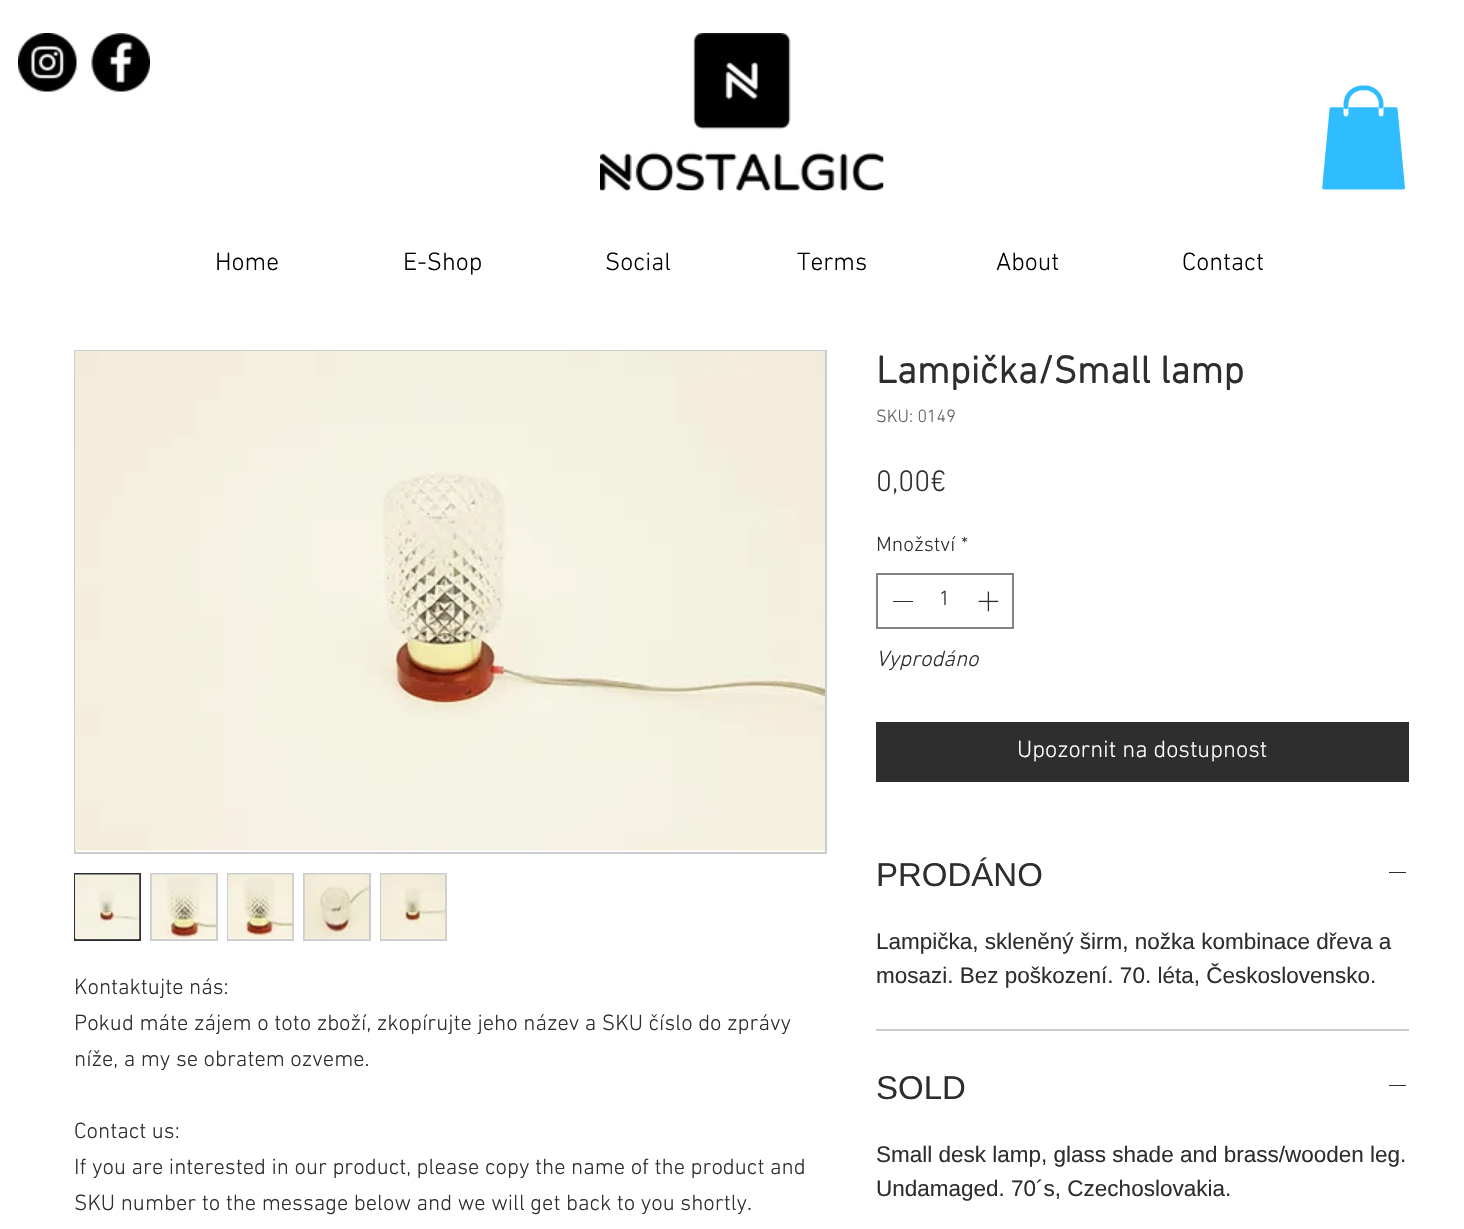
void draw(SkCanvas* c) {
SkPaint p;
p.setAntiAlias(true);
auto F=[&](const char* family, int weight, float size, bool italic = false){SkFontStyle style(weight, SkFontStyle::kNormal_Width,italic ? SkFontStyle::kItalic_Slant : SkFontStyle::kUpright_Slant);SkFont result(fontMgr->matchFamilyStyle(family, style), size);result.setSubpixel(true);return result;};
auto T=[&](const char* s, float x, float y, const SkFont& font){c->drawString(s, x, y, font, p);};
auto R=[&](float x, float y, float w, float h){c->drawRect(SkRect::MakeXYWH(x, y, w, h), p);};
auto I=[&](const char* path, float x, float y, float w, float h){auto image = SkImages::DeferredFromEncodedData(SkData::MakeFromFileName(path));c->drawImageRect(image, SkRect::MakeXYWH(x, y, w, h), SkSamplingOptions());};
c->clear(0xffffffff);
I("1.png",18,33,59,59);
I("2.png",91,33,59,59);
I("3.png",600,33,284,158);
I("4.png",1322,85,83,105);
auto f1 = F("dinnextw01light",300,25.5);
p.setColor(0xff000000);
T("Home",215,270,f1);
T("E-Shop",403,270,f1);
T("Social",605,270,f1);
T("Terms",797,270,f1);
T("About",996,270,f1);
T("Contact",1182,270,f1);
p.setStroke(true);
p.setStrokeWidth(2);
p.setColor(0xffcccccc);
c->drawRect(SkRect::MakeXYWH(75,351,751,502),p);
I("5.png",75,351,750,500);
p.setColor(0xff2f2e2e);
c->drawRect(SkRect::MakeXYWH(75,874,65,66),p);
I("6.png",75,874,65,66);
p.setColor(0xffcccccc);
c->drawRect(SkRect::MakeXYWH(151,874,66,66),p);
I("7.png",151,874,65,66);
c->drawRect(SkRect::MakeXYWH(228,874,65,66),p);
I("8.png",228,874,65,66);
c->drawRect(SkRect::MakeXYWH(304,874,66,66),p);
I("9.png",304,874,65,66);
c->drawRect(SkRect::MakeXYWH(381,874,65,66),p);
I("10.png",381,874,65,66);
auto f2 = F("dinnextw01light",300,22.5);
p.setStroke(false);
p.setColor(0xff2f2e2e);
T("Kontaktujte nás:",74,994,f2);
T("Pokud máte zájem o toto zboží, zkopírujte jeho název a SKU číslo do zprávy",74,1030,f2);
T("níže, a my se obratem ozveme.",74,1066,f2);
T("Contact us:",74,1138,f2);
T("If you are interested in our product, please copy the name of the product and",74,1174,f2);
T("SKU number to the message below and we will get back to you shortly.",74,1210,f2);
auto f3 = F("dinnextw01light",700,39);
T("Lampička/Small lamp",876,383,f3);
auto f4 = F("dinnextw01light",300,18);
p.setColor(0xff605e5e);
T("SKU: 0149",876,422,f4);
auto f5 = F("dinnextw01light",300,30);
p.setColor(0xff2f2e2e);
T("0,00€",876,491,f5);
auto f6 = F("dinnextw01light",300,21);
T("Množství",876,551,f6);
T("*",961,551,f6);
p.setStroke(true);
p.setColor(0xff828282);
c->drawRect(SkRect::MakeXYWH(877,574,136,54),p);
p.setStroke(false);
p.setColor(0xff2f2e2e);
R(893,601,20,1);
T("1",939,605,f6);
I("11.png",978,591,21,21);
auto f7 = F("dinnextw01light",300,22.5,true);
T("Vyprodáno",876,666,f7);
R(876,722,533,60);
auto f8 = F("dinnextw01light",300,24);
p.setColor(0xffffffff);
T("Upozornit na dostupnost",1017,757,f8);
p.setColor(0xffcccccc);
R(876,1029,533,2);
auto f9 = F("Liberation Sans",400,33);
p.setColor(0xff2f2e2e);
T("PRODÁNO",876,886,f9);
R(1389,872,17,1);
auto f10 = F("Liberation Sans",400,22.5);
T("Lampička, skleněný širm, nožka kombinace dřeva a",876,949,f10);
T("mosazi. Bez poškození. 70. léta, Československo.",876,983,f10);
T("SOLD",876,1099,f9);
R(1389,1085,17,1);
T("Small desk lamp, glass shade and brass/wooden leg.",876,1162,f10);
T("Undamaged. 70´s, Czechoslovakia.",876,1196,f10);
}
